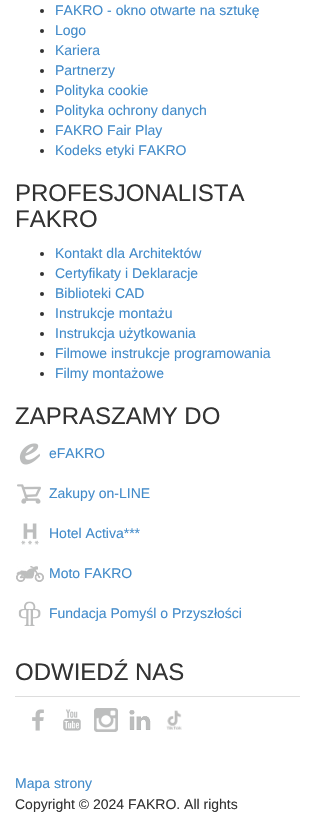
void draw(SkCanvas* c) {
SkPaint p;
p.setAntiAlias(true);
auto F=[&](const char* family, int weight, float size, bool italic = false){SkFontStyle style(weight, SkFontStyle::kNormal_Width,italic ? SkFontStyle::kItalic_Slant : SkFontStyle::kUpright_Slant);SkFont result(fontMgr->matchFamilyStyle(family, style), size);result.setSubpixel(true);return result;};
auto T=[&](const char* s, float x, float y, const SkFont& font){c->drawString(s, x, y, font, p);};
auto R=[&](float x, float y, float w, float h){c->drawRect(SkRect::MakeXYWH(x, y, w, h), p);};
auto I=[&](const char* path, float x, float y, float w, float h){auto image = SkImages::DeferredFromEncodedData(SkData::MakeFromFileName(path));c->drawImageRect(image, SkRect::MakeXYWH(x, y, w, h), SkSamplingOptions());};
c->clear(0xffffffff);
p.setColor(0xff333333);
c->drawCircle(42,11,2,p);
auto f1 = F("Liberation Sans",400,14);
p.setColor(0xff428bca);
T("FAKRO - okno otwarte na sztukę",55,15,f1);
p.setColor(0xff333333);
c->drawCircle(42,31,2,p);
p.setColor(0xff428bca);
T("Logo",55,35,f1);
p.setColor(0xff333333);
c->drawCircle(42,51,2,p);
p.setColor(0xff428bca);
T("Kariera",55,55,f1);
p.setColor(0xff333333);
c->drawCircle(42,71,2,p);
p.setColor(0xff428bca);
T("Partnerzy",55,75,f1);
p.setColor(0xff333333);
c->drawCircle(42,91,2,p);
p.setColor(0xff428bca);
T("Polityka cookie",55,95,f1);
p.setColor(0xff333333);
c->drawCircle(42,111,2,p);
p.setColor(0xff428bca);
T("Polityka ochrony danych",55,115,f1);
p.setColor(0xff333333);
c->drawCircle(42,131,2,p);
p.setColor(0xff428bca);
T("FAKRO Fair Play",55,135,f1);
p.setColor(0xff333333);
c->drawCircle(42,151,2,p);
p.setColor(0xff428bca);
T("Kodeks etyki FAKRO",55,155,f1);
auto f2 = F("Liberation Sans",400,24);
p.setColor(0xff333333);
T("PROFESJONALISTA",15,201,f2);
T("FAKRO",15,227,f2);
c->drawCircle(42,254,2,p);
p.setColor(0xff428bca);
T("Kontakt dla Architektów",55,258,f1);
p.setColor(0xff333333);
c->drawCircle(42,274,2,p);
p.setColor(0xff428bca);
T("Certyfikaty i Deklaracje",55,278,f1);
p.setColor(0xff333333);
c->drawCircle(42,294,2,p);
p.setColor(0xff428bca);
T("Biblioteki CAD",55,298,f1);
p.setColor(0xff333333);
c->drawCircle(42,314,2,p);
p.setColor(0xff428bca);
T("Instrukcje montażu",55,318,f1);
p.setColor(0xff333333);
c->drawCircle(42,334,2,p);
p.setColor(0xff428bca);
T("Instrukcja użytkowania",55,338,f1);
p.setColor(0xff333333);
c->drawCircle(42,354,2,p);
p.setColor(0xff428bca);
T("Filmowe instrukcje programowania",55,358,f1);
p.setColor(0xff333333);
c->drawCircle(42,374,2,p);
p.setColor(0xff428bca);
T("Filmy montażowe",55,378,f1);
p.setColor(0xff333333);
T("ZAPRASZAMY DO",15,424,f2);
I("1.png",19,443,21,22);
p.setColor(0xff428bca);
T("eFAKRO",49,458,f1);
I("2.png",17,484,24,20);
T("Zakupy on-LINE",49,498,f1);
I("3.png",21,523,18,22);
T("Hotel Activa***",49,538,f1);
I("4.png",16,566,28,16);
T("Moto FAKRO",49,578,f1);
I("5.png",18,601,23,25);
T("Fundacja Pomyśl o Przyszłości",49,618,f1);
p.setColor(0xff333333);
T("ODWIEDŹ NAS",15,680,f2);
p.setColor(0xffdddddd);
R(15,696,285,1);
I("6.png",32,709,12,22);
I("7.png",63,709,18,22);
I("8.png",94,708,24,24);
I("9.png",129,710,22,20);
I("10.png",166,710,16,20);
p.setColor(0xff428bca);
T("Mapa strony",15,788,f1);
p.setColor(0xff333333);
T("Copyright © 2024 FAKRO. All rights",15,809,f1);
}
